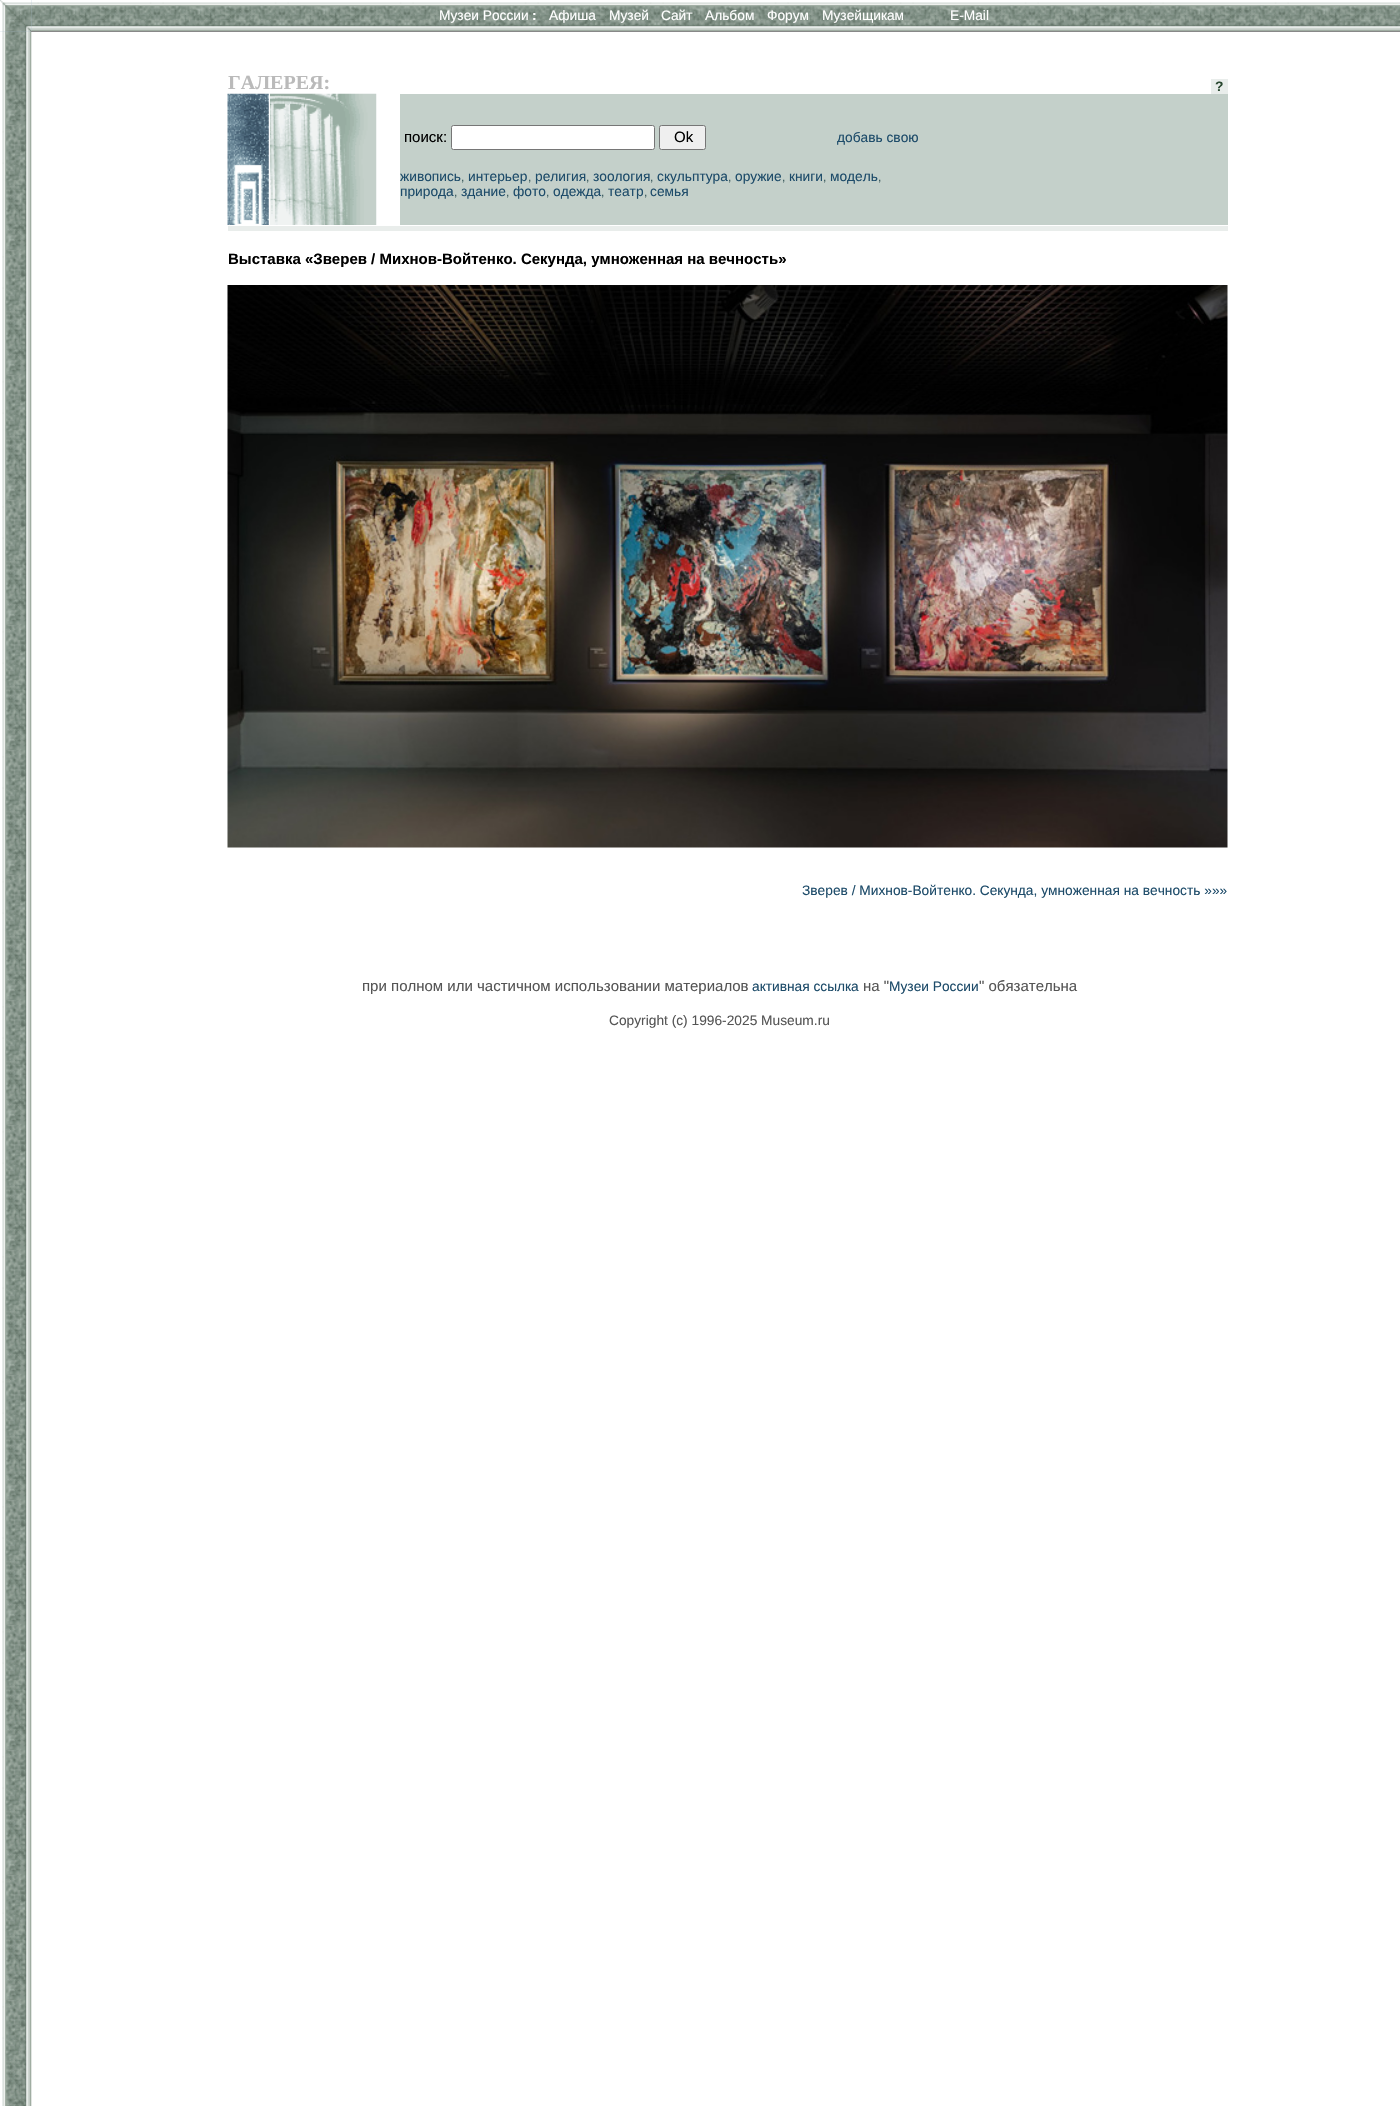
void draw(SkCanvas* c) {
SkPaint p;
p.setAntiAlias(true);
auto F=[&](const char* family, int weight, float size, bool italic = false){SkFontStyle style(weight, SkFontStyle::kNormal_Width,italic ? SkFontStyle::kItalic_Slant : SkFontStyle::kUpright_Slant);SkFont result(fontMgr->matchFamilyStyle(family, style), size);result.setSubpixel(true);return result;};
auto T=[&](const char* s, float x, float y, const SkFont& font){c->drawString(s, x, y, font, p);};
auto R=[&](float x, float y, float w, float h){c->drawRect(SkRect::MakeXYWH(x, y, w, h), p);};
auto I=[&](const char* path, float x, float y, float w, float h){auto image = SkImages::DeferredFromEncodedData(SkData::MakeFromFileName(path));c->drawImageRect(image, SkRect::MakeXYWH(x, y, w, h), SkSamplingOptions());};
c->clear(0xffffffff);
I("1.png",2,0,30,2106);
I("2.png",0,0,32,32);
I("3.png",31,0,1369,31);
auto f1 = F("Liberation Sans",400,13.75);
p.setColor(0xffffffff);
T("Музеи России",439,20,f1);
auto f2 = F("Liberation Sans",700,13.75);
T(":",532,20,f2);
T("Афиша",549,20,f1);
T("Музей",609,20,f1);
T("Сайт",661,20,f1);
T("Альбом",705,20,f1);
T("Форум",767,20,f1);
T("Музейщикам",822,20,f1);
T("E-Mail",950,20,f1);
p.setColor(0xff888888);
R(31,31,1369,1);
auto f3 = F("Liberation Serif",700,20);
p.setColor(0xffbababa);
T("ГАЛЕРЕЯ:",228,89,f3);
p.setColor(0xffe9edeb);
R(1211,79,17,15);
p.setColor(0xff2a4931);
T("?",1215,91,f2);
I("4.png",227,93,42,132);
I("5.png",270,93,107,132);
p.setColor(0xffc4d0ca);
R(400,94,828,131);
auto f4 = F("Liberation Sans",400,15);
p.setColor(0xff000000);
T("поиск:",404,142,f4);
p.setColor(0xffffffff);
c->drawRoundRect(SkRect::MakeXYWH(451.5,125.5,203,24),2,2,p);
p.setStroke(true);
p.setStrokeWidth(1);
p.setColor(0xff767676);
c->drawRoundRect(SkRect::MakeXYWH(451.5,125.5,203,24),2,2,p);
p.setStroke(false);
p.setColor(0xffefefef);
c->drawRoundRect(SkRect::MakeXYWH(659.5,125.5,46,24),2,2,p);
p.setStroke(true);
p.setColor(0xff767676);
c->drawRoundRect(SkRect::MakeXYWH(659.5,125.5,46,24),2,2,p);
p.setStroke(false);
p.setColor(0xff000000);
T("Ok",674,142,f4);
p.setColor(0xff1e4c6a);
T("добавь свою",837,142,f1);
T("живопись",400,181,f1);
auto f5 = F("Liberation Sans",400,12);
p.setColor(0xff39595c);
T(",",461,181,f5);
p.setColor(0xff1e4c6a);
T("интерьер",468,181,f1);
p.setColor(0xff39595c);
T(",",528,181,f5);
p.setColor(0xff1e4c6a);
T("религия",535,181,f1);
p.setColor(0xff39595c);
T(",",586,181,f5);
p.setColor(0xff1e4c6a);
T("зоология",593,181,f1);
p.setColor(0xff39595c);
T(",",650,181,f5);
p.setColor(0xff1e4c6a);
T("скульптура",657,181,f1);
p.setColor(0xff39595c);
T(",",728,181,f5);
p.setColor(0xff1e4c6a);
T("оружие",735,181,f1);
p.setColor(0xff39595c);
T(",",782,181,f5);
p.setColor(0xff1e4c6a);
T("книги",789,181,f1);
p.setColor(0xff39595c);
T(",",823,181,f5);
p.setColor(0xff1e4c6a);
T("модель",830,181,f1);
p.setColor(0xff39595c);
T(",",878,181,f5);
p.setColor(0xff1e4c6a);
T("природа",400,196,f1);
p.setColor(0xff39595c);
T(",",454,196,f5);
p.setColor(0xff1e4c6a);
T("здание",461,196,f1);
p.setColor(0xff39595c);
T(",",506,196,f5);
p.setColor(0xff1e4c6a);
T("фото",513,196,f1);
p.setColor(0xff39595c);
T(",",546,196,f5);
p.setColor(0xff1e4c6a);
T("одежда",553,196,f1);
p.setColor(0xff39595c);
T(",",601,196,f5);
p.setColor(0xff1e4c6a);
T("театр",608,196,f1);
p.setColor(0xff39595c);
T(",",644,196,f5);
p.setColor(0xff1e4c6a);
T("семья",650,196,f1);
p.setColor(0xffe9edeb);
R(228,226,1000,5);
auto f6 = F("Liberation Sans",700,15);
p.setColor(0xff000000);
T("Выставка «Зверев / Михнов-Войтенко. Секунда, умноженная на вечность»",228,264,f6);
I("6.png",227,285,1001,563);
p.setColor(0xff1e4c6a);
T("Зверев / Михнов-Войтенко. Секунда, умноженная на вечность »»»",802,895,f1);
p.setColor(0xff555555);
T("при полном или частичном использовании материалов",362,991,f4);
p.setColor(0xff1e4c6a);
T("активная ссылка",752,991,f1);
p.setColor(0xff555555);
T("на \"",863,991,f4);
p.setColor(0xff1e4c6a);
T("Музеи России",889,991,f1);
p.setColor(0xff555555);
T("\" обязательна",979,991,f4);
T("Copyright (c) 1996-2025 Museum.ru",609,1025,f1);
}
